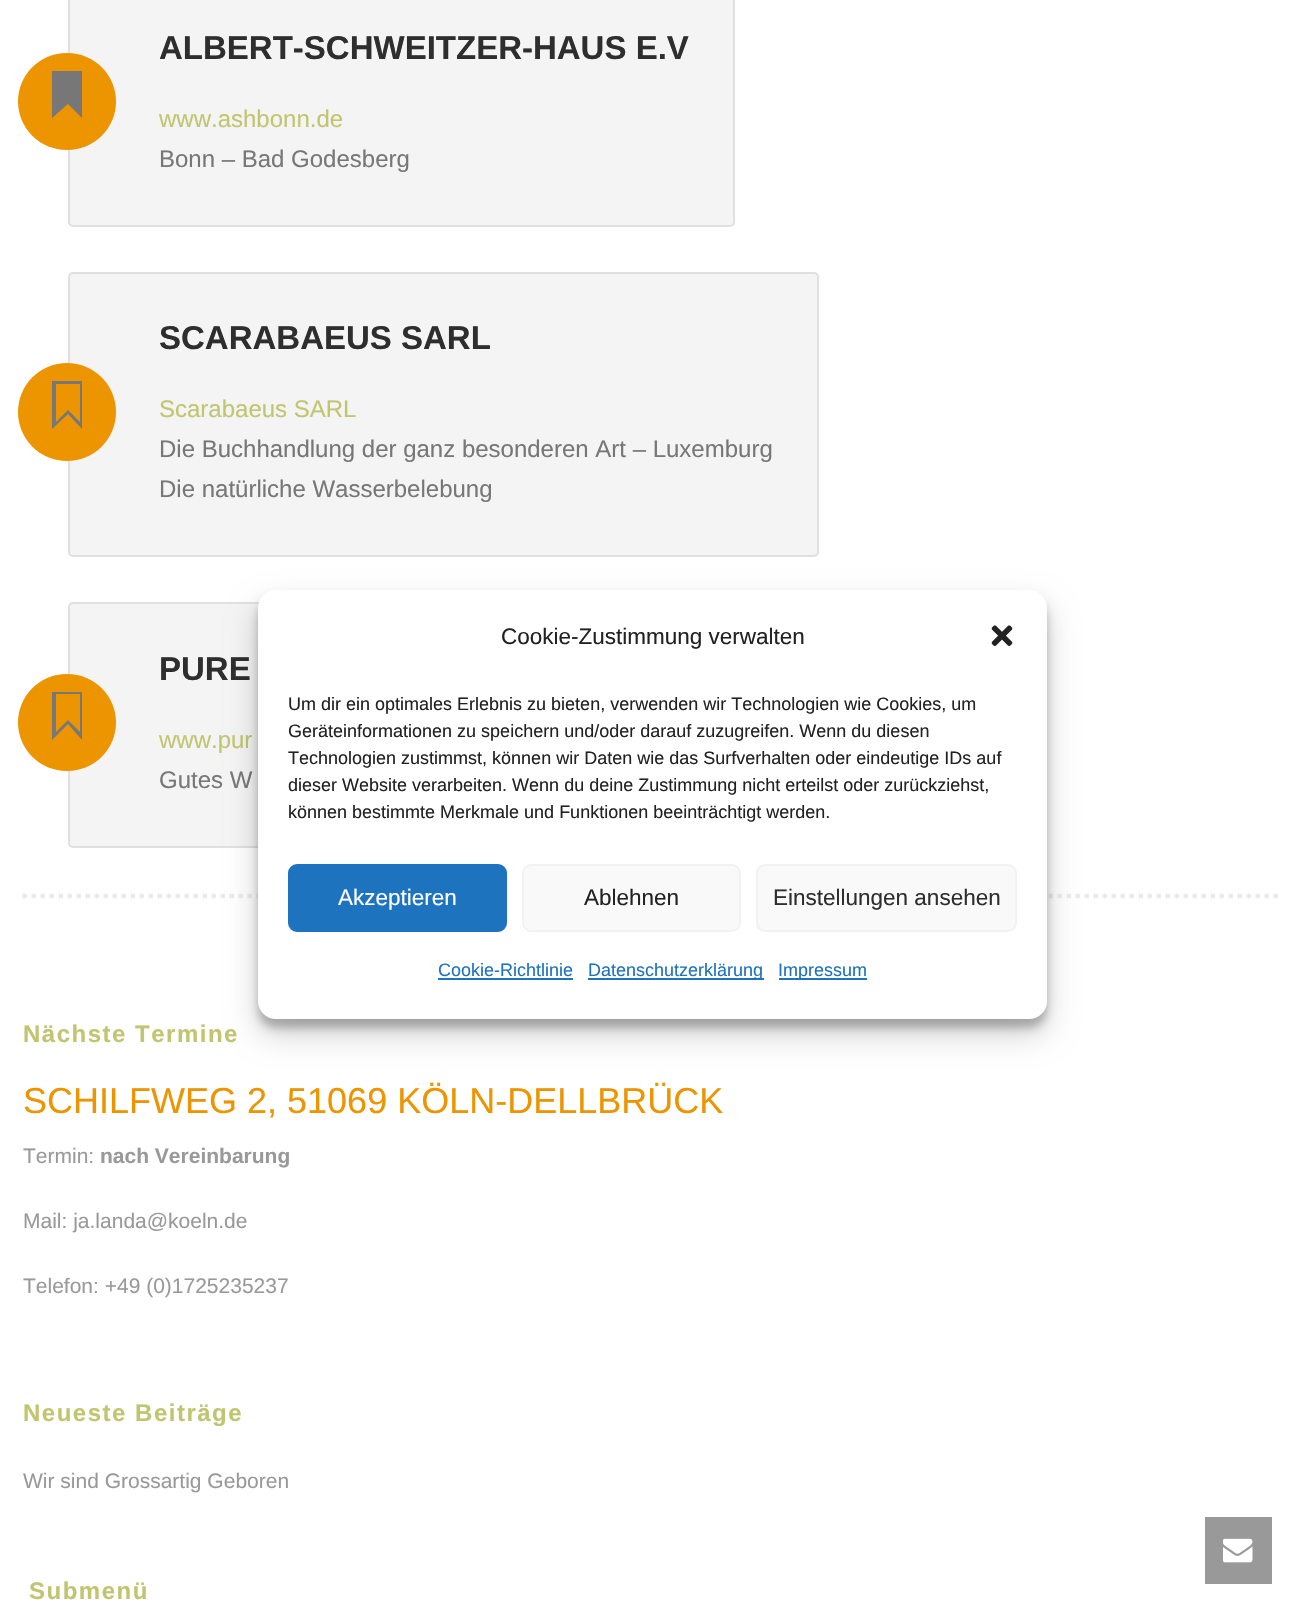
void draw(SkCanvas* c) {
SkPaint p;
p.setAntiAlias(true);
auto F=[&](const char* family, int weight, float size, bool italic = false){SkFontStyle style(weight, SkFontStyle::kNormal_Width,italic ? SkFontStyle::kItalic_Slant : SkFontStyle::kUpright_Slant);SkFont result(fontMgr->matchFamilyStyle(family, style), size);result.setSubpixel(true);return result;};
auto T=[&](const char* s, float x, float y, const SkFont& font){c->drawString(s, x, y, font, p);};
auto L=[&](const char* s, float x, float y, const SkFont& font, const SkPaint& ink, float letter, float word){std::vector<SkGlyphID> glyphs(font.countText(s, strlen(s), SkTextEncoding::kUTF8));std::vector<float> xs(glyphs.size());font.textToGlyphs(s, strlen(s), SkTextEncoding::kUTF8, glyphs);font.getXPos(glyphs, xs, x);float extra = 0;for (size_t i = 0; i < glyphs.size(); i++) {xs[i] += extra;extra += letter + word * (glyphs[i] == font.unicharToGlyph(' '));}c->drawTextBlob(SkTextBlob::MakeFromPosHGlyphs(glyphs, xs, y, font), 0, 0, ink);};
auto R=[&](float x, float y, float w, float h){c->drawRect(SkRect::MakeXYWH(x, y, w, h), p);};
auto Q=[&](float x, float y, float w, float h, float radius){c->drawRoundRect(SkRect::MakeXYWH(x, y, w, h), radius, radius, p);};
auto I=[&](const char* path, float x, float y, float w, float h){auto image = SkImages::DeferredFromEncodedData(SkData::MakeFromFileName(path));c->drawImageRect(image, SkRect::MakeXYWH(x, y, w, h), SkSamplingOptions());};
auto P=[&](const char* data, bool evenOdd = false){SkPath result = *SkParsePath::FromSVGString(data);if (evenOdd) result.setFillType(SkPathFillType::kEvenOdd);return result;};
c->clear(0xffffffff);
p.setColor(0xfff4f4f4);
c->drawRoundRect(SkRect::MakeXYWH(69,-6,665,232),4,4,p);
p.setStroke(true);
p.setStrokeWidth(2);
p.setColor(0xffe0e0e0);
c->drawRoundRect(SkRect::MakeXYWH(69,-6,665,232),4,4,p);
auto f1 = F("Liberation Sans",700,33);
p.setStroke(false);
p.setColor(0xff2e2e2e);
T("ALBERT-SCHWEITZER-HAUS E.V",159,59,f1);
p.setColor(0xffec9500);
Q(18,53,98,97,48.5);
c->save();
c->clipRect(SkRect::MakeXYWH(44,71,48,48));
p.setColor(0xff777777);
c->drawPath(P("M52 70v48l16-14l14 14v-48z"),p);
c->restore();
auto f2 = F("Liberation Sans",400,24);
p.setColor(0xffc2c570);
T("www.ashbonn.de",159,127,f2);
p.setColor(0xff777777);
T("Bonn – Bad Godesberg",159,167,f2);
p.setColor(0xfff4f4f4);
c->drawRoundRect(SkRect::MakeXYWH(69,273,749,283),4,4,p);
p.setStroke(true);
p.setColor(0xffe0e0e0);
c->drawRoundRect(SkRect::MakeXYWH(69,273,749,283),4,4,p);
p.setStroke(false);
p.setColor(0xff2e2e2e);
T("SCARABAEUS SARL",159,349,f1);
p.setColor(0xffec9500);
c->drawCircle(67,412,49,p);
p.setColor(0xff777777);
c->drawPath(P("M52 381v48l16-15l14 15v-48zm28 41l-12-12l-12 12v-38h24z"),p);
p.setColor(0xffc2c570);
T("Scarabaeus SARL",159,417,f2);
p.setColor(0xff777777);
T("Die Buchhandlung der ganz besonderen Art – Luxemburg",159,457,f2);
T("Die natürliche Wasserbelebung",159,497,f2);
p.setColor(0xfff4f4f4);
c->drawRoundRect(SkRect::MakeXYWH(69,603,614,244),4,4,p);
p.setStroke(true);
p.setColor(0xffe0e0e0);
c->drawRoundRect(SkRect::MakeXYWH(69,603,614,244),4,4,p);
p.setStroke(false);
p.setColor(0xff2e2e2e);
T("PURE",159,680,f1);
p.setColor(0xffec9500);
Q(18,674,98,97,48.5);
p.setColor(0xff777777);
c->drawPath(P("M52 692v48l16-16l14 16v-48zm28 40l-12-12l-12 12v-38h24z"),p);
p.setColor(0xffc2c570);
T("www.pur",159,748,f2);
p.setColor(0xff777777);
T("Gutes W",159,788,f2);
p.setStroke(true);
p.setStrokeWidth(4.5);
p.setColor(0xffebebeb);
p.setPathEffect(SkDashPathEffect::Make({{4.5f,4.5f}}, 0));
c->drawPath(P("M22.5 896h1260"),p);
p.setPathEffect(nullptr);
auto f3 = F("Liberation Sans",700,24);
p.setStroke(false);
p.setColor(0xffc2c570);
L("Nächste Termine",23,1042,f3,p,1.5,0);
auto f4 = F("Liberation Sans",400,36);
p.setColor(0xffec9500);
T("SCHILFWEG 2, 51069 KÖLN-DELLBRÜCK",23,1113,f4);
auto f5 = F("Liberation Sans",400,21);
p.setColor(0xff999999);
T("Termin:",23,1163,f5);
auto f6 = F("Liberation Sans",700,21);
T("nach Vereinbarung",100,1163,f6);
T("Mail: ja.landa@koeln.de",23,1228,f5);
T("Telefon: +49 (0)1725235237",23,1293,f5);
p.setColor(0xffc2c570);
L("Neueste Beiträge",23,1421,f3,p,1.5,0);
p.setColor(0xff999999);
T("Wir sind Grossartig Geboren",23,1488,f5);
p.setColor(0xffc2c570);
L("Submenü",29,1599,f3,p,1.5,0);
p.setColor(0x3b000000);
p.setMaskFilter(SkMaskFilter::MakeBlur(kNormal_SkBlurStyle, 4.5));
c->drawRoundRect(SkRect::MakeXYWH(258,599,789,429),18,18,p);
p.setMaskFilter(nullptr);
p.setColor(0x30000000);
p.setMaskFilter(SkMaskFilter::MakeBlur(kNormal_SkBlurStyle, 15));
c->drawRoundRect(SkRect::MakeXYWH(258,605,789,429),18,18,p);
p.setMaskFilter(nullptr);
p.setColor(0xffffffff);
Q(258,590,789,429,18);
auto f7 = F("Liberation Sans",400,22.5);
p.setColor(0xff222222);
T("Cookie-Zustimmung verwalten",501,644,f7);
I("1.png",991,625,22,21);
auto f8 = F("Liberation Sans",400,18);
T("Um dir ein optimales Erlebnis zu bieten, verwenden wir Technologien wie Cookies, um",288,710,f8);
T("Geräteinformationen zu speichern und/oder darauf zuzugreifen. Wenn du diesen",288,737,f8);
T("Technologien zustimmst, können wir Daten wie das Surfverhalten oder eindeutige IDs auf",288,764,f8);
T("dieser Website verarbeiten. Wenn du deine Zustimmung nicht erteilst oder zurückziehst,",288,791,f8);
T("können bestimmte Merkmale und Funktionen beeinträchtigt werden.",288,818,f8);
p.setColor(0xff1e73be);
c->drawRoundRect(SkRect::MakeXYWH(289,865,217,66),8,8,p);
p.setStroke(true);
p.setStrokeWidth(2);
c->drawRoundRect(SkRect::MakeXYWH(289,865,217,66),8,8,p);
p.setStroke(false);
p.setColor(0xffffffff);
T("Akzeptieren",338,905,f7);
p.setColor(0xfff9f9f9);
c->drawRoundRect(SkRect::MakeXYWH(523,865,217,66),8,8,p);
p.setStroke(true);
p.setColor(0xfff2f2f2);
c->drawRoundRect(SkRect::MakeXYWH(523,865,217,66),8,8,p);
p.setStroke(false);
p.setColor(0xff222222);
T("Ablehnen",584,905,f7);
p.setColor(0xfff9f9f9);
c->drawRoundRect(SkRect::MakeXYWH(757,865,259,66),8,8,p);
p.setStroke(true);
p.setColor(0xfff2f2f2);
c->drawRoundRect(SkRect::MakeXYWH(757,865,259,66),8,8,p);
p.setStroke(false);
p.setColor(0xff2e2e2e);
T("Einstellungen ansehen",773,905,f7);
p.setColor(0xff1e73be);
T("Cookie-Richtlinie",438,976,f8);
R(438,978,135,2);
R(588,978,176,2);
T("Datenschutzerklärung",588,976,f8);
R(779,978,88,2);
T("Impressum",778,976,f8);
p.setColor(0xff999999);
R(1205,1517,67,67);
I("2.png",1223,1538,30,25);
}
